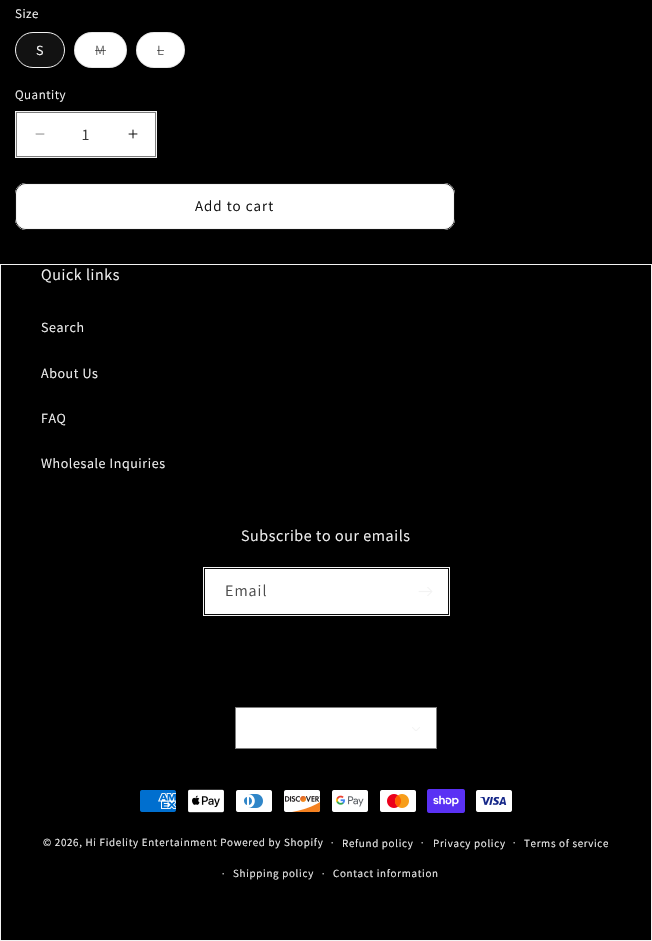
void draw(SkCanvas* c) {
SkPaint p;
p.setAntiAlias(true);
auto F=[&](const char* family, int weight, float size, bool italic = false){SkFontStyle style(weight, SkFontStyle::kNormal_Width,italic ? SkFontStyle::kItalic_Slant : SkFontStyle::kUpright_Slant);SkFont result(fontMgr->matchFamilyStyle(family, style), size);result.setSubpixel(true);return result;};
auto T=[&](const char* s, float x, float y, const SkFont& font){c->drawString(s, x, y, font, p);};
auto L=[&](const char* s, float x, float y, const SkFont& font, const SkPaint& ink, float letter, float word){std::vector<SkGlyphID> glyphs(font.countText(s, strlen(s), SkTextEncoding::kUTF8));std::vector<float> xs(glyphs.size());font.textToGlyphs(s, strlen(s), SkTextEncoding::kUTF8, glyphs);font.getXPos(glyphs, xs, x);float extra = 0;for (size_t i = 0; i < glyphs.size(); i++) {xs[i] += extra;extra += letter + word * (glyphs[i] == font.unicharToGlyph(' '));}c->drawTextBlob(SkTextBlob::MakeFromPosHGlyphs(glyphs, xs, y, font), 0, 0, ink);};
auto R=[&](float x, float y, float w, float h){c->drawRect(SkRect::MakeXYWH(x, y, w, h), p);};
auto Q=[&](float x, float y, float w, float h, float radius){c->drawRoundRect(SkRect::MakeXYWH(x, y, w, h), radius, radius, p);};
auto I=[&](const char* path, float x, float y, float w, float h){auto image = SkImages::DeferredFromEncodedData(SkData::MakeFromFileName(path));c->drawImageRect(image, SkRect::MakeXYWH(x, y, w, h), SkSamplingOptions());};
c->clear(0xff000000);
auto f1 = F("Assistant",400,13);
p.setColor(0xfff3f3f3);
L("Size",15,18,f1,p,.5,0);
p.setColor(0xff121212);
c->drawRoundRect(SkRect::MakeXYWH(15.5,32.5,49,35),17.5,17.5,p);
p.setStroke(true);
p.setStrokeWidth(1);
p.setColor(0xfff3f3f3);
c->drawRoundRect(SkRect::MakeXYWH(15.5,32.5,49,35),17.5,17.5,p);
auto f2 = F("Assistant",400,14);
p.setStroke(false);
p.setColor(0xffffffff);
L("S",36,55,f2,p,1,0);
Q(74,32,53,36,18);
p.setStroke(true);
p.setColor(0x1a121212);
c->drawRoundRect(SkRect::MakeXYWH(74.5,32.5,52,35),17.5,17.5,p);
p.setStroke(false);
p.setColor(0xff717171);
L("M",95,55,f2,p,1,0);
p.setColor(0x99121212);
R(95,50,11,1);
p.setColor(0xffffffff);
Q(136,32,49,36,18);
p.setStroke(true);
p.setColor(0x1a121212);
c->drawRoundRect(SkRect::MakeXYWH(136.5,32.5,48,35),17.5,17.5,p);
p.setStroke(false);
p.setColor(0xff717171);
L("L",157,55,f2,p,1,0);
p.setColor(0x99121212);
R(157,50,7,1);
p.setColor(0xfff3f3f3);
L("Quantity",15,99,f1,p,.5,0);
p.setColor(0xffffffff);
R(17,113,138,43);
p.setStroke(true);
p.setColor(0xfff3f3f3);
c->drawRect(SkRect::MakeXYWH(15.5,111.5,141,46),p);
I("1.png",35,133,10,2);
I("2.png",128,129,10,10);
p.setColor(0xff7d7d7d);
c->drawRect(SkRect::MakeXYWH(16.5,112.5,139,44),p);
auto f3 = F("Assistant",400,16);
p.setStroke(false);
p.setColor(0xff363636);
T("1",82,140,f3);
p.setColor(0xffffffff);
Q(15,183,440,47,11);
p.setStroke(true);
c->drawRoundRect(SkRect::MakeXYWH(15.5,183.5,439,46),10.5,10.5,p);
p.setColor(0xff121212);
c->drawRoundRect(SkRect::MakeXYWH(15.5,183.5,439,46),10.5,10.5,p);
p.setColor(0xfff3f3f3);
c->drawRoundRect(SkRect::MakeXYWH(16.5,184.5,437,44),9.5,9.5,p);
auto f4 = F("Assistant",400,15);
p.setStroke(false);
p.setColor(0xff121212);
L("Add to cart",195,211,f4,p,1,0);
p.setStroke(true);
p.setColor(0xfff3f3f3);
c->drawRect(SkRect::MakeXYWH(.5,264.5,651,676),p);
p.setStroke(false);
L("Quick links",41,280,f3,p,.6,0);
L("Search",41,332,f2,p,.6,0);
L("About Us",41,378,f2,p,.6,0);
L("FAQ",41,423,f2,p,.6,0);
L("Wholesale Inquiries",41,468,f2,p,.6,0);
L("Subscribe to our emails",241,541,f3,p,.6,0);
p.setStroke(true);
c->drawRect(SkRect::MakeXYWH(203.5,567.5,246,48),p);
p.setStroke(false);
p.setColor(0xffffffff);
R(205,569,243,45);
p.setStroke(true);
p.setColor(0xff0a0a0a);
c->drawRect(SkRect::MakeXYWH(204.5,568.5,244,46),p);
p.setStroke(false);
p.setColor(0xff4d4d4d);
L("Email",225,596,f3,p,1,0);
I("3.png",418,587,15,9);
p.setColor(0xffffffff);
R(236,708,200,40);
I("4.png",412,727,8,4);
p.setStroke(true);
p.setColor(0xff7d7d7d);
c->drawRect(SkRect::MakeXYWH(235.5,707.5,201,41),p);
I("5.png",140,790,36,22);
I("6.png",188,789,36,24);
I("7.png",236,790,36,22);
I("8.png",284,790,37,22);
I("9.png",332,790,36,22);
I("10.png",380,790,36,22);
I("11.png",427,789,38,24);
I("12.png",476,790,36,22);
auto f5 = F("Assistant",400,11);
p.setStroke(false);
p.setColor(0xfff3f3f3);
L("© 2026, Hi Fidelity Entertainment Powered by Shopify",43,846,f5,p,.7,0);
auto f6 = F("Assistant",400,10);
L("·",331,846,f6,p,.7,0);
L("Refund policy",342,847,f5,p,.7,0);
L("·",421,846,f6,p,.7,0);
L("Privacy policy",433,847,f5,p,.7,0);
L("·",513,846,f6,p,.7,0);
L("Terms of service",524,847,f5,p,.7,0);
L("·",222,877,f6,p,.7,0);
L("Shipping policy",233,877,f5,p,.7,0);
L("·",322,877,f6,p,.7,0);
L("Contact information",333,877,f5,p,.7,0);
}
